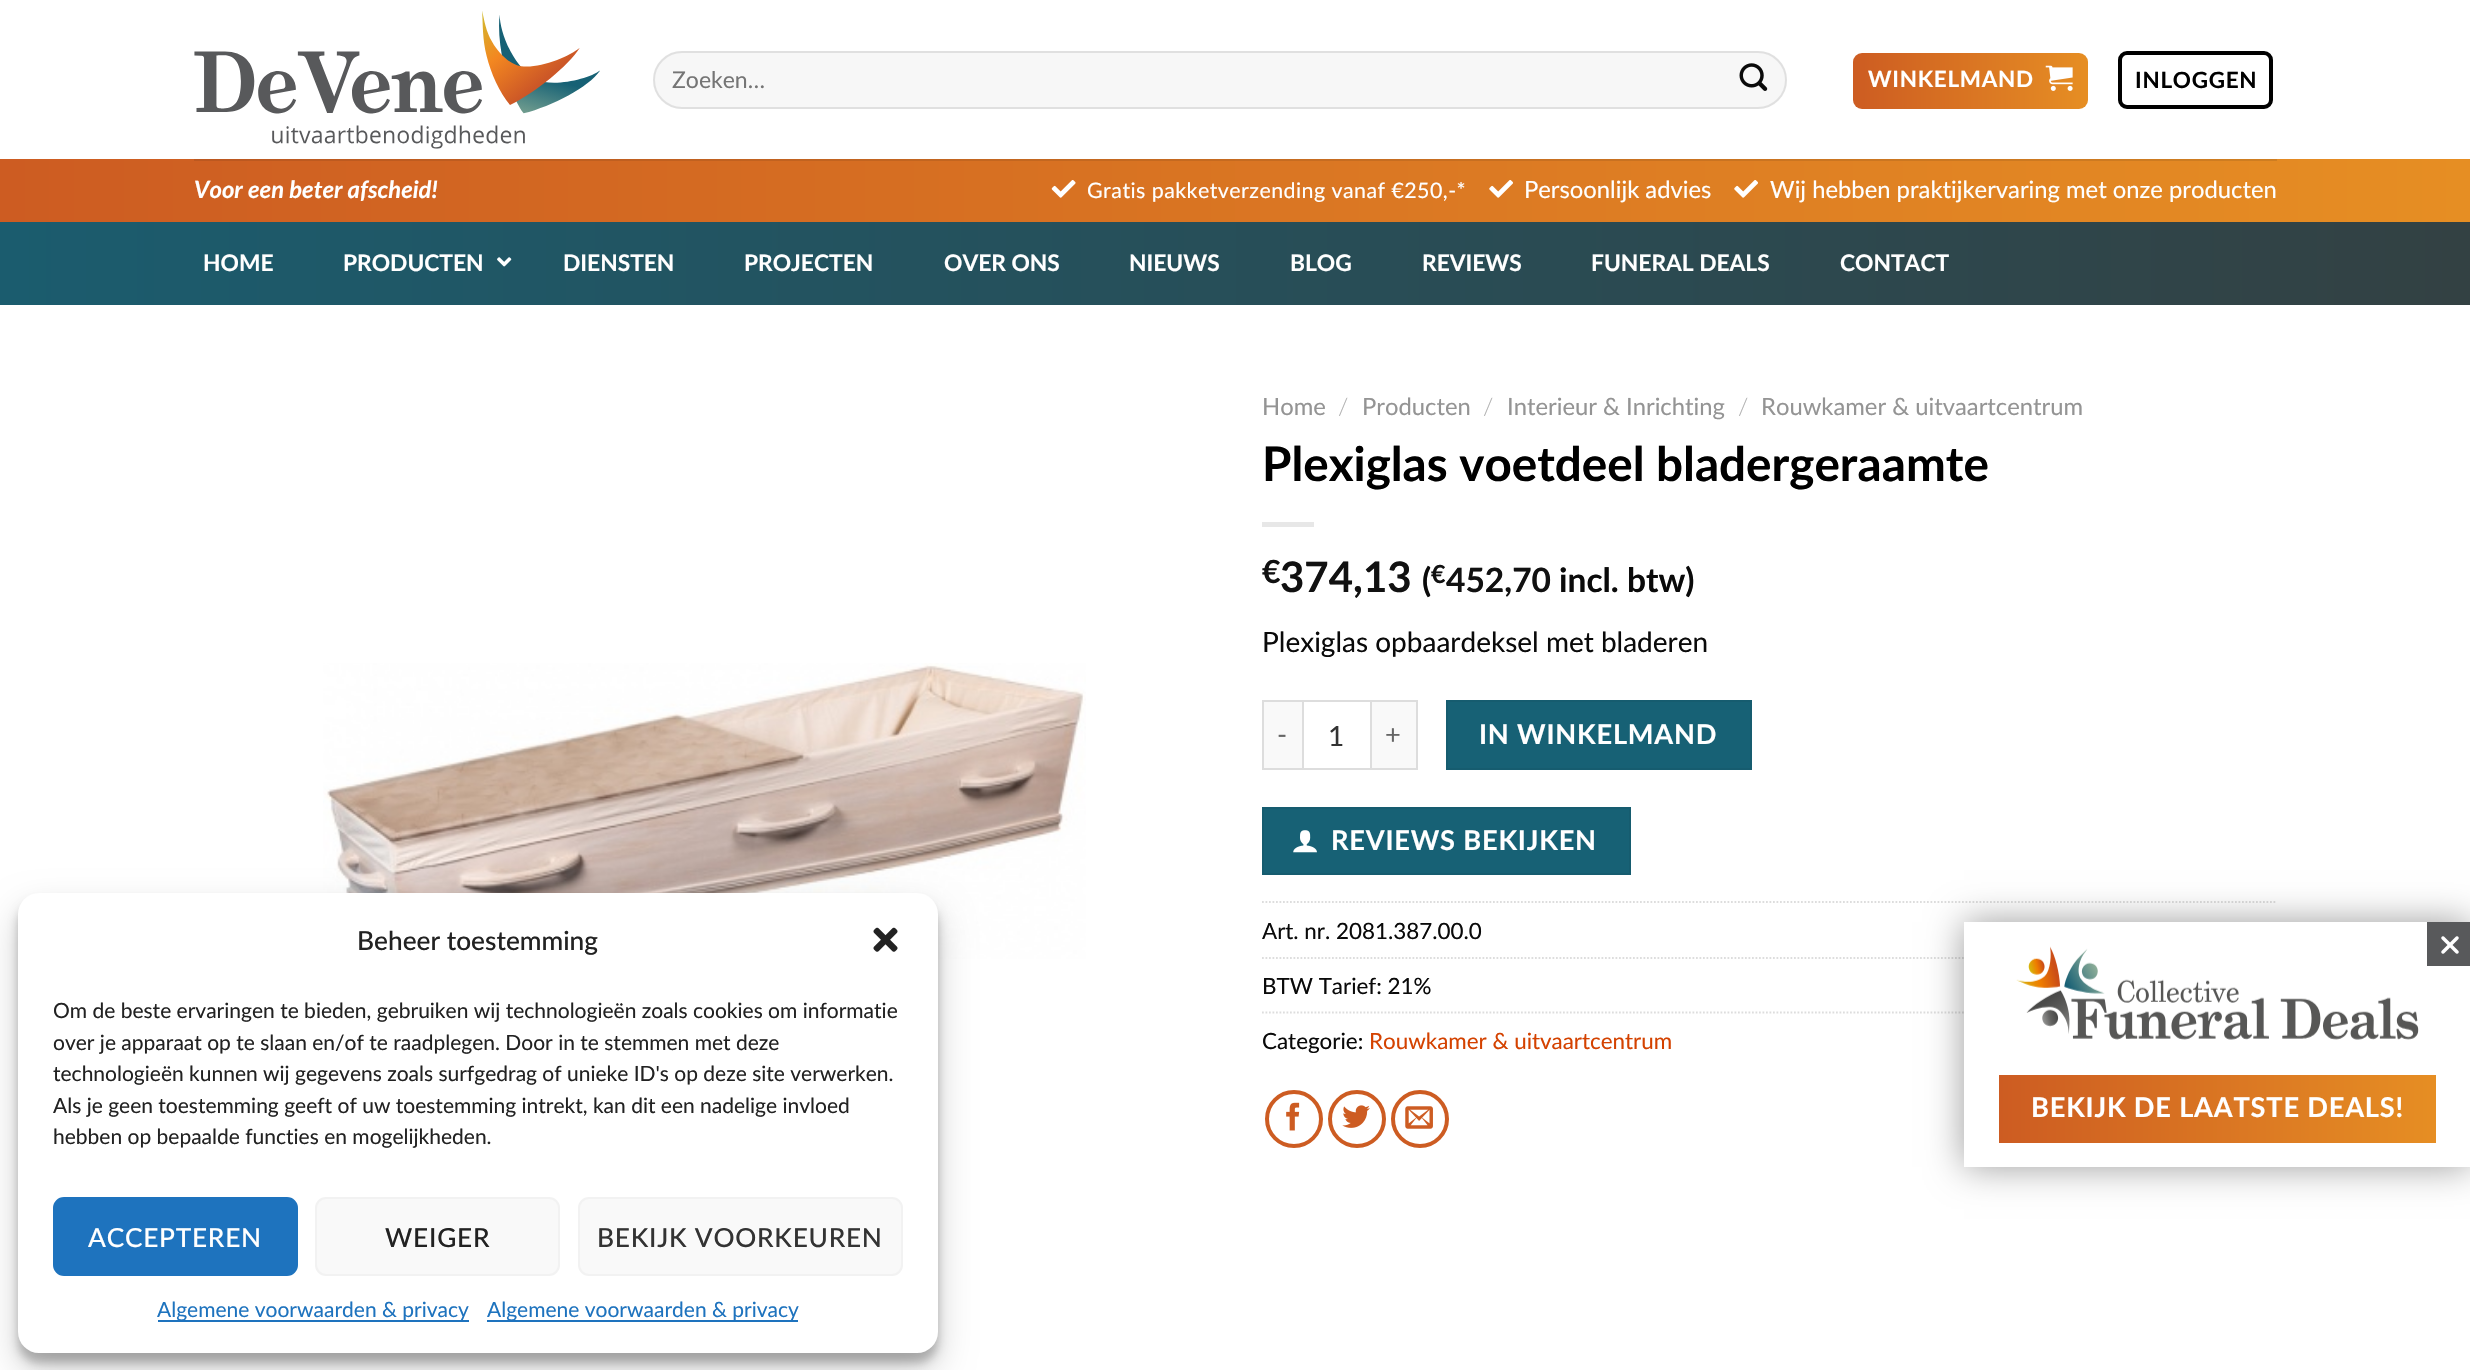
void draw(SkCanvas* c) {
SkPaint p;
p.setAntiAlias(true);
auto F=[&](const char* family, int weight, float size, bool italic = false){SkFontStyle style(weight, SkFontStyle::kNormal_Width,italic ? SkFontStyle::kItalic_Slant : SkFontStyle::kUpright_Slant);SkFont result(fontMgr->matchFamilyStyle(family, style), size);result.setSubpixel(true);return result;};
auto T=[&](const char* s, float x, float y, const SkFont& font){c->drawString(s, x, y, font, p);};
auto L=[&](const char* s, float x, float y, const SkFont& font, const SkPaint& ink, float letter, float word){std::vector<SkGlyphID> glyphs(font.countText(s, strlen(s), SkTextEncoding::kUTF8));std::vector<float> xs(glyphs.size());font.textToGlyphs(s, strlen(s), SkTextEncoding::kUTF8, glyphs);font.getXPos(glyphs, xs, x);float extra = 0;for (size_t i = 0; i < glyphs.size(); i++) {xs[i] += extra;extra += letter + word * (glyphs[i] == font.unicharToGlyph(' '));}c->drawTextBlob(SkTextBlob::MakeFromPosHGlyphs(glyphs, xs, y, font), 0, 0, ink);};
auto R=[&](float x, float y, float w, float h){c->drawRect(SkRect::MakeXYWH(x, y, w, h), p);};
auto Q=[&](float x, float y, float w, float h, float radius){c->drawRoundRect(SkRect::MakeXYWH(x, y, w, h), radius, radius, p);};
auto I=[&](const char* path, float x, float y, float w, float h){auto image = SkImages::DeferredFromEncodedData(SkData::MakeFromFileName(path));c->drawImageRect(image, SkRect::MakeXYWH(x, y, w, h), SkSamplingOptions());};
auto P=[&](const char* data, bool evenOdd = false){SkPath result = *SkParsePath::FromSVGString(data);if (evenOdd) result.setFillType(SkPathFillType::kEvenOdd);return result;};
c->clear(0xffffffff);
I("1.png",194,11,406,138);
p.setColor(0xfff7f7f7);
Q(653,51,1134,58,29);
p.setStroke(true);
p.setStrokeWidth(2);
p.setColor(0x17000000);
c->drawRoundRect(SkRect::MakeXYWH(654,52,1132,56),28,28,p);
auto f1 = F("Lato",400,23);
p.setStroke(false);
p.setColor(0xff757575);
T("Zoeken…",672,88,f1);
I("2.png",1739,63,29,28);
{
const SkColor colors[] = {0xffcd5c22,0xffe68e23};
const float stops[] = {0,1};
const SkPoint ends[] = {{1853,81}, {2088,80}};
p.setShader(SkGradientShader::MakeLinear(ends, colors, stops, 2, SkTileMode::kClamp));
p.setAlpha(255);
}
Q(1853,53,235,56,9);
auto f2 = F("Lato",700,22.4);
p.setShader(nullptr);
p.setColor(0xffffffff);
L("WINKELMAND",1868,87,f2,p,.75,0);
I("3.png",2045,65,28,26);
p.setStroke(true);
p.setStrokeWidth(4);
p.setColor(0xff000000);
c->drawRoundRect(SkRect::MakeXYWH(2120,53,151,54),7,7,p);
p.setStroke(false);
L("INLOGGEN",2135,88,f2,p,.75,0);
{
const SkColor colors[] = {0xffcd5c22,0xffe68e23};
const float stops[] = {0,1};
const SkPoint ends[] = {{0,191}, {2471,191}};
p.setShader(SkGradientShader::MakeLinear(ends, colors, stops, 2, SkTileMode::kClamp));
p.setAlpha(255);
}
R(0,159,2470,63);
{
const SkColor colors[] = {0xffba5420,0xffd08121};
const float stops[] = {0,1};
const SkPoint ends[] = {{0,191}, {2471,191}};
p.setShader(SkGradientShader::MakeLinear(ends, colors, stops, 2, SkTileMode::kClamp));
p.setAlpha(255);
}
R(194,159,2083,2);
auto f3 = F("Lato",700,23.8,true);
p.setShader(nullptr);
p.setColor(0xffffffff);
T("Voor een beter afscheid!",194,198,f3);
I("4.png",1051,180,25,18);
auto f4 = F("Lato",400,21.4);
L("Gratis pakketverzending vanaf €250,-*",1087,198,f4,p,.45,0);
I("5.png",1489,180,24,18);
auto f5 = F("Lato",400,23.8);
T("Persoonlijk advies",1524,198,f5);
I("6.png",1734,180,24,18);
T("Wij hebben praktijkervaring met onze producten",1770,198,f5);
{
const SkColor colors[] = {0xff1b5c6e,0xff334143};
const float stops[] = {0,1};
const SkPoint ends[] = {{0,263}, {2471,263}};
p.setShader(SkGradientShader::MakeLinear(ends, colors, stops, 2, SkTileMode::kClamp));
p.setAlpha(255);
}
R(0,222,2470,83);
auto f6 = F("Lato",700,22.75);
p.setShader(nullptr);
p.setColor(0xffffffff);
T("HOME",203,271,f6);
T("PRODUCTEN",343,271,f6);
I("7.png",497,257,15,10);
T("DIENSTEN",563,271,f6);
T("PROJECTEN",744,271,f6);
T("OVER ONS",944,271,f6);
T("NIEUWS",1129,271,f6);
T("BLOG",1290,271,f6);
T("REVIEWS",1422,271,f6);
T("FUNERAL DEALS",1591,271,f6);
T("CONTACT",1840,271,f6);
I("8.png",323,663,763,296);
p.setColor(0xff949494);
T("Home",1262,415,f5);
auto f7 = F("Lato",300,23.8);
p.setColor(0xffb2b2b2);
T("/",1338,415,f7);
p.setColor(0xff949494);
T("Producten",1362,415,f5);
p.setColor(0xffb2b2b2);
T("/",1483,415,f7);
p.setColor(0xff949494);
T("Interieur & Inrichting",1507,415,f5);
p.setColor(0xffb2b2b2);
T("/",1738,415,f7);
p.setColor(0xff949494);
T("Rouwkamer & uitvaartcentrum",1761,415,f5);
auto f8 = F("Lato",700,47.6);
p.setColor(0xff000000);
T("Plexiglas voetdeel bladergeraamte",1262,481,f8);
p.setColor(0xffe7e7e7);
R(1262,522,52,5);
auto f9 = F("Lato",700,32);
p.setColor(0xff111111);
T("€",1262,583,f9);
auto f10 = F("Lato",700,42);
T("374,13",1280,592,f10);
auto f11 = F("Lato",700,33.5);
p.setColor(0xff0a0a0a);
T("(",1422,592,f11);
auto f12 = F("Lato",700,25);
p.setColor(0xff111111);
T("€",1431,583,f12);
T("452,70",1446,592,f11);
p.setColor(0xff0a0a0a);
T("incl. btw)",1559,592,f11);
auto f13 = F("Lato",400,28);
T("Plexiglas opbaardeksel met bladeren",1262,652,f13);
p.setColor(0xfff9f9f9);
R(1264,702,38,66);
p.setColor(0xffdddddd);
R(1262,700,40,2);
R(1262,768,40,2);
R(1262,700,2,70);
auto f14 = F("Lato",400,27.2);
p.setColor(0xff666666);
L("-",1277,744,f14,p,.8,0);
p.setStroke(true);
p.setStrokeWidth(2);
p.setColor(0xffdddddd);
c->drawRect(SkRect::MakeXYWH(1303,701,68,68),p);
p.setStroke(false);
p.setColor(0xff333333);
T("1",1328,746,f13);
p.setColor(0xfff9f9f9);
R(1372,702,44,66);
p.setColor(0xffdddddd);
R(1372,700,46,2);
R(1416,700,2,70);
R(1372,768,46,2);
p.setColor(0xff666666);
L("+",1385,744,f14,p,.8,0);
p.setColor(0xff176175);
c->drawRect(SkRect::MakeXYWH(1447,701,304,68),p);
p.setStroke(true);
p.setColor(0xff165c6f);
c->drawRect(SkRect::MakeXYWH(1447,701,304,68),p);
auto f15 = F("Lato",700,27.2);
p.setStroke(false);
p.setColor(0xffffffff);
L("IN WINKELMAND",1479,744,f15,p,.8,0);
p.setColor(0xff176175);
c->drawRect(SkRect::MakeXYWH(1263,808,367,66),p);
p.setStroke(true);
p.setColor(0xff165c6f);
c->drawRect(SkRect::MakeXYWH(1263,808,367,66),p);
I("9.png",1293,830,24,23);
p.setStroke(false);
p.setColor(0xffffffff);
L("REVIEWS BEKIJKEN",1331,850,f15,p,.8,0);
p.setStroke(true);
p.setStrokeWidth(1.8);
p.setColor(0xffdddddd);
p.setPathEffect(SkDashPathEffect::Make({{1.75f,1.75f}}, 0));
c->drawPath(P("M1262 902h1015"),p);
p.setPathEffect(nullptr);
auto f16 = F("Lato",400,22.4);
p.setStroke(false);
p.setColor(0xff0a0a0a);
T("Art. nr. 2081.387.00.0",1262,939,f16);
p.setStroke(true);
p.setColor(0xffdddddd);
p.setPathEffect(SkDashPathEffect::Make({{1.75f,1.75f}}, 0));
c->drawPath(P("M1262 958h1015"),p);
p.setPathEffect(nullptr);
p.setStroke(false);
p.setColor(0xff0a0a0a);
T("BTW Tarief: 21%",1262,994,f16);
p.setStroke(true);
p.setColor(0xffdddddd);
p.setPathEffect(SkDashPathEffect::Make({{1.75f,1.75f}}, 0));
c->drawPath(P("M1262 1012.5h1015"),p);
p.setPathEffect(nullptr);
p.setStroke(false);
p.setColor(0xff0a0a0a);
T("Categorie:",1262,1049,f16);
p.setColor(0xffd44200);
T("Rouwkamer & uitvaartcentrum",1369,1049,f16);
p.setStroke(true);
p.setStrokeWidth(4);
p.setColor(0xffcd5c22);
c->drawCircle(1294,1119,27,p);
I("10.png",1286,1102,14,29);
c->drawCircle(1357,1119,27,p);
I("11.png",1342,1105,28,23);
c->drawCircle(1420,1119,27,p);
I("12.png",1405,1106,28,23);
p.setStroke(false);
p.setColor(0x3b000000);
p.setMaskFilter(SkMaskFilter::MakeBlur(kNormal_SkBlurStyle, 5));
c->drawRoundRect(SkRect::MakeXYWH(18,903,920,460),21,21,p);
p.setMaskFilter(nullptr);
p.setColor(0x30000000);
p.setMaskFilter(SkMaskFilter::MakeBlur(kNormal_SkBlurStyle, 17.5));
c->drawRoundRect(SkRect::MakeXYWH(18,910,920,460),21,21,p);
p.setMaskFilter(nullptr);
p.setColor(0xffffffff);
Q(18,893,920,460,21);
auto f17 = F("Lato",500,26.25);
p.setColor(0xff222222);
T("Beheer toestemming",357,950,f17);
I("13.png",873,927,25,25);
auto f18 = F("Lato",400,21);
T("Om de beste ervaringen te bieden, gebruiken wij technologieën zoals cookies om informatie",53,1018,f18);
T("over je apparaat op te slaan en/of te raadplegen. Door in te stemmen met deze",53,1050,f18);
T("technologieën kunnen wij gegevens zoals surfgedrag of unieke ID's op deze site verwerken.",53,1081,f18);
T("Als je geen toestemming geeft of uw toestemming intrekt, kan dit een nadelige invloed",53,1113,f18);
T("hebben op bepaalde functies en mogelijkheden.",53,1144,f18);
p.setColor(0xff1e73be);
c->drawRoundRect(SkRect::MakeXYWH(54,1198,243,77),10,10,p);
p.setStroke(true);
p.setStrokeWidth(2);
c->drawRoundRect(SkRect::MakeXYWH(54,1198,243,77),10,10,p);
p.setStroke(false);
p.setColor(0xffffffff);
L("ACCEPTEREN",88,1247,f17,p,.75,0);
p.setColor(0xfff9f9f9);
c->drawRoundRect(SkRect::MakeXYWH(316,1198,243,77),10,10,p);
p.setStroke(true);
p.setColor(0xfff2f2f2);
c->drawRoundRect(SkRect::MakeXYWH(316,1198,243,77),10,10,p);
p.setStroke(false);
p.setColor(0xff222222);
L("WEIGER",385,1247,f17,p,.75,0);
p.setColor(0xfff9f9f9);
c->drawRoundRect(SkRect::MakeXYWH(579,1198,323,77),10,10,p);
p.setStroke(true);
p.setColor(0xfff2f2f2);
c->drawRoundRect(SkRect::MakeXYWH(579,1198,323,77),10,10,p);
p.setStroke(false);
p.setColor(0xff333333);
L("BEKIJK VOORKEUREN",597,1247,f17,p,.75,0);
p.setColor(0xff1e73be);
R(158,1320,311,2);
T("Algemene voorwaarden & privacy",157,1317,f18);
R(487,1320,311,2);
T("Algemene voorwaarden & privacy",487,1317,f18);
p.setColor(0x63000000);
p.setMaskFilter(SkMaskFilter::MakeBlur(kNormal_SkBlurStyle, 17.5));
c->drawRect(SkRect::MakeXYWH(1964,922,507,245),p);
p.setMaskFilter(nullptr);
p.setColor(0xffffffff);
R(1964,922,506,245);
I("14.png",2016,946,403,94);
p.setColor(0xff58595b);
R(2427,922,43,44);
I("15.png",2441,936,18,18);
{
const SkColor colors[] = {0xffcd5c22,0xffe68e23};
const float stops[] = {0,1};
const SkPoint ends[] = {{1999,1109}, {2436,1109}};
p.setShader(SkGradientShader::MakeLinear(ends, colors, stops, 2, SkTileMode::kClamp));
p.setAlpha(255);
}
R(1999,1075,437,68);
p.setShader(nullptr);
p.setColor(0xffffffff);
L("BEKIJK DE LAATSTE DEALS!",2031,1117,f15,p,.8,0);
}
